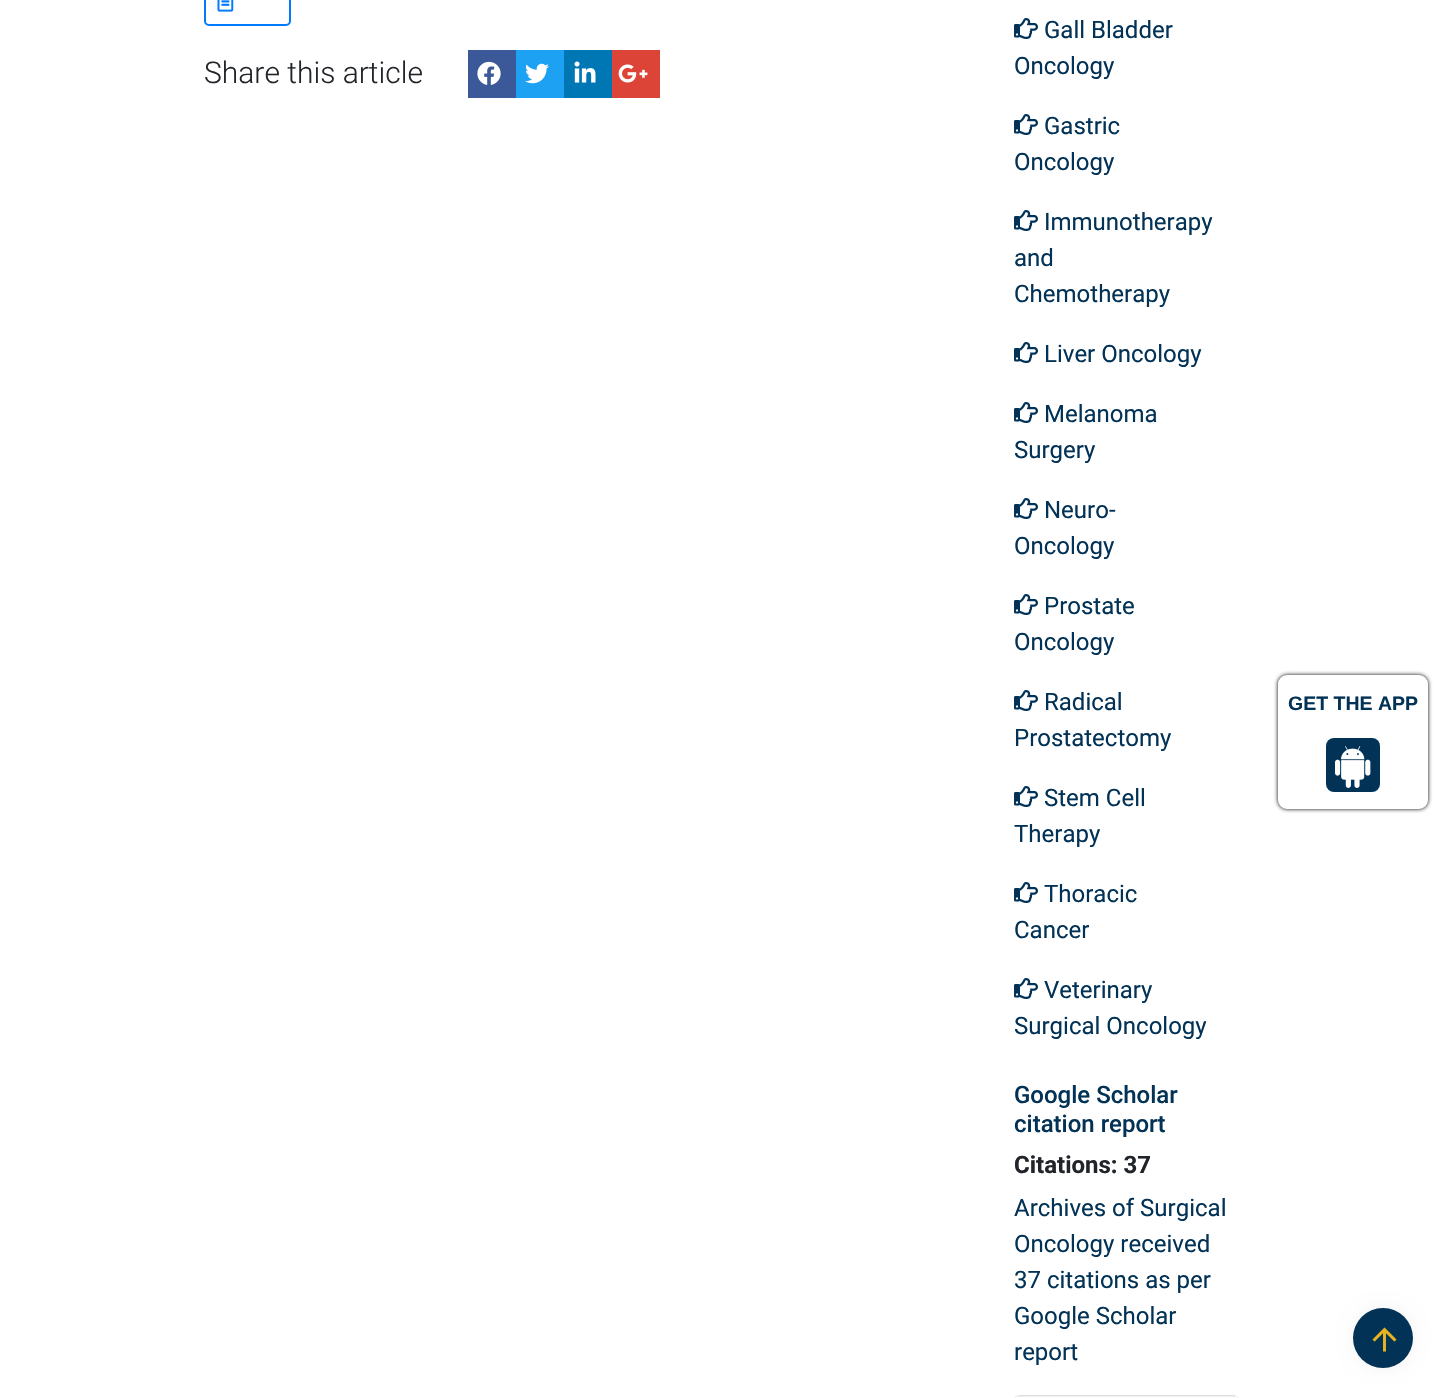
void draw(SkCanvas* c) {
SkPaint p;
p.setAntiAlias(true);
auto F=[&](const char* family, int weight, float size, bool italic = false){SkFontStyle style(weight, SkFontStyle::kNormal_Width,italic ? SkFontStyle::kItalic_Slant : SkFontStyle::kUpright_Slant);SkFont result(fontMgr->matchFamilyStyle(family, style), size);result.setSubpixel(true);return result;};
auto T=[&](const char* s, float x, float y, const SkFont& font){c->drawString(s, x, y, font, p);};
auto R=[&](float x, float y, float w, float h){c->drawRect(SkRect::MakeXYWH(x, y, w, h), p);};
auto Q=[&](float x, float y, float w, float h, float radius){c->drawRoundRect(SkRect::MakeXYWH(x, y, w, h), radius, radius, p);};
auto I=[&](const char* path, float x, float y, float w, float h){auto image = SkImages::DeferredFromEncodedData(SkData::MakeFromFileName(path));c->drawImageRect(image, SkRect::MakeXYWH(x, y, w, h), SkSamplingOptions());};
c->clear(0xffffffff);
p.setStroke(true);
p.setStrokeWidth(2);
p.setColor(0xff007bff);
c->drawRoundRect(SkRect::MakeXYWH(205,-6,85,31),4,4,p);
I("1.png",217,0,17,12);
auto f1 = F("Roboto",300,30);
p.setStroke(false);
p.setColor(0xff212529);
T("Share this article",204,83,f1);
p.setColor(0xff3b5998);
R(468,50,48,48);
I("2.png",477,61,24,24);
p.setColor(0xff1da1f2);
R(516,50,48,48);
I("3.png",525,63,24,21);
p.setColor(0xff0077b5);
R(564,50,48,48);
I("4.png",574,61,22,22);
p.setColor(0xffdb4437);
R(612,50,48,48);
I("5.png",618,64,30,19);
I("6.png",1014,18,24,21);
auto f2 = F("Roboto",400,24);
p.setColor(0xff023256);
T("Gall Bladder",1044,38,f2);
T("Oncology",1014,74,f2);
I("6.png",1014,114,24,21);
T("Gastric",1044,134,f2);
T("Oncology",1014,170,f2);
I("6.png",1014,210,24,21);
T("Immunotherapy",1044,230,f2);
T("and",1014,266,f2);
T("Chemotherapy",1014,302,f2);
I("6.png",1014,342,24,21);
T("Liver Oncology",1044,362,f2);
I("6.png",1014,402,24,21);
T("Melanoma",1044,422,f2);
T("Surgery",1014,458,f2);
I("6.png",1014,498,24,21);
T("Neuro-",1044,518,f2);
T("Oncology",1014,554,f2);
I("6.png",1014,594,24,21);
T("Prostate",1044,614,f2);
T("Oncology",1014,650,f2);
I("6.png",1014,690,24,21);
T("Radical",1044,710,f2);
T("Prostatectomy",1014,746,f2);
I("6.png",1014,786,24,21);
T("Stem Cell",1044,806,f2);
T("Therapy",1014,842,f2);
I("6.png",1014,882,24,21);
T("Thoracic",1044,902,f2);
T("Cancer",1014,938,f2);
I("6.png",1014,978,24,21);
T("Veterinary",1044,998,f2);
T("Surgical Oncology",1014,1034,f2);
auto f3 = F("Roboto",500,24);
T("Google Scholar",1014,1103,f3);
T("citation report",1014,1132,f3);
auto f4 = F("Roboto",700,24);
p.setColor(0xff212529);
T("Citations: 37",1014,1173,f4);
p.setColor(0xff023256);
T("Archives of Surgical",1014,1216,f2);
T("Oncology received",1014,1252,f2);
T("37 citations as per",1014,1288,f2);
T("Google Scholar",1014,1324,f2);
T("report",1014,1360,f2);
p.setStroke(true);
p.setColor(0xffdfdfdf);
c->drawRoundRect(SkRect::MakeXYWH(1015,1396,223,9),5,5,p);
I("7.png",1015,1396,223,2);
p.setStroke(false);
p.setColor(0xff000000);
p.setMaskFilter(SkMaskFilter::MakeBlur(kNormal_SkBlurStyle, 2));
c->drawRoundRect(SkRect::MakeXYWH(1278,675,150,134),9,9,p);
p.setMaskFilter(nullptr);
p.setColor(0xffffffff);
c->drawRoundRect(SkRect::MakeXYWH(1279,676,148,132),8,8,p);
p.setStroke(true);
c->drawRoundRect(SkRect::MakeXYWH(1279,676,148,132),8,8,p);
auto f5 = F("Liberation Sans",700,19.5);
p.setStroke(false);
p.setColor(0xff023256);
T("GET THE APP",1288,710,f5);
Q(1326,738,54,54,8);
I("8.png",1335,746,36,42);
p.setColor(0x0d000000);
p.setMaskFilter(SkMaskFilter::MakeBlur(kNormal_SkBlurStyle, 7.5));
c->drawRoundRect(SkRect::MakeXYWH(1353,1308,60,60),30,30,p);
p.setMaskFilter(nullptr);
p.setColor(0xff023256);
c->drawCircle(1383,1338,30,p);
I("9.png",1372,1327,25,25);
}
